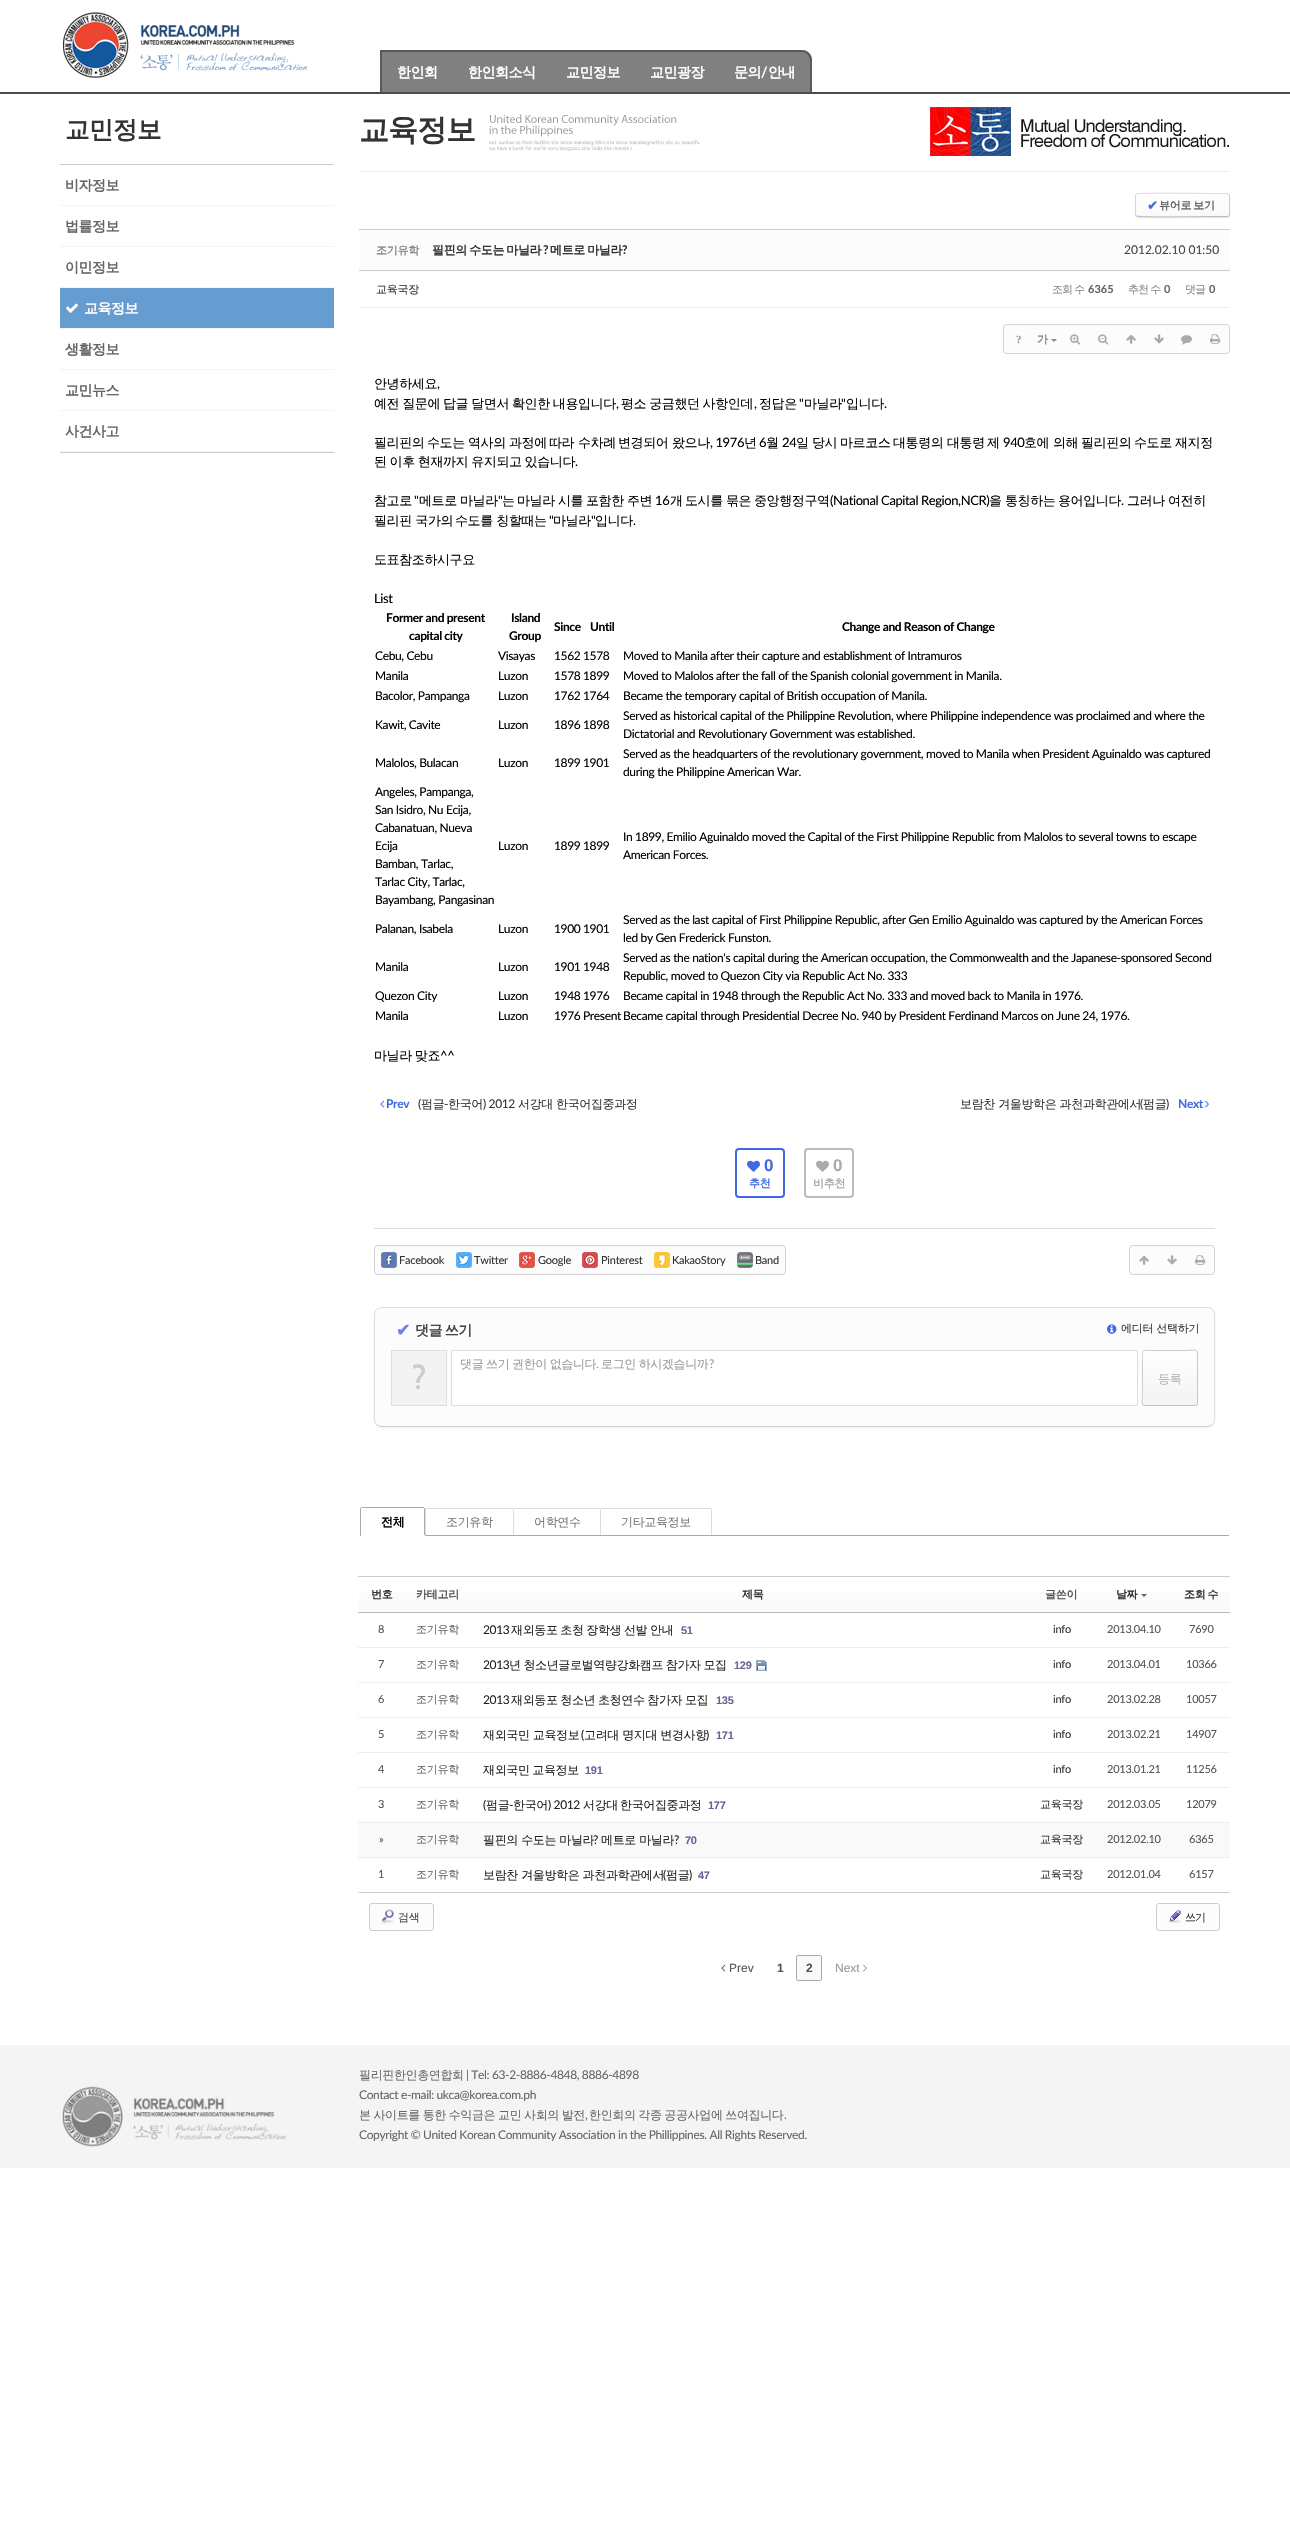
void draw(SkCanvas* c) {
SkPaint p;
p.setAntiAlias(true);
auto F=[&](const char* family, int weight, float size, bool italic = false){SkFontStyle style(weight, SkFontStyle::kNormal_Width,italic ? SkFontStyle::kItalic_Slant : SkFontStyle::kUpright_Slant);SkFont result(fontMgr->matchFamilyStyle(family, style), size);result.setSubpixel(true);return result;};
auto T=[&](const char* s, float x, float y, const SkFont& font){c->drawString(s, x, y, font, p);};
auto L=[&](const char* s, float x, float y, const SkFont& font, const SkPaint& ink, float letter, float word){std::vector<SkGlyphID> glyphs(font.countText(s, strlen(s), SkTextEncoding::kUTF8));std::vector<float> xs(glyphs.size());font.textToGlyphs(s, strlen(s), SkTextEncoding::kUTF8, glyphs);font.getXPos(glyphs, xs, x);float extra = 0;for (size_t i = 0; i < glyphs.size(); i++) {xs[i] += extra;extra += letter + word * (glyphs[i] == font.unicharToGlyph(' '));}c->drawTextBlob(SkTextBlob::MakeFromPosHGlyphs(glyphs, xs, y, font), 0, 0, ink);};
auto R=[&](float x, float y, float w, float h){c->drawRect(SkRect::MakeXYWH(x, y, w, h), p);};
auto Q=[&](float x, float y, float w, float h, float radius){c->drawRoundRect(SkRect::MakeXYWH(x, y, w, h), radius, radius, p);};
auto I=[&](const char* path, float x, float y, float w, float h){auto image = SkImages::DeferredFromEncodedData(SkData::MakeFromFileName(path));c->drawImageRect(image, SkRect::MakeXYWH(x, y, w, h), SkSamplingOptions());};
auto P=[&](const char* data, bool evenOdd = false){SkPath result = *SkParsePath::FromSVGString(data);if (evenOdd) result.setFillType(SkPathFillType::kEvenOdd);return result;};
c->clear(0xffffffff);
p.setColor(0xff4d4d4d);
R(0,92,1290,2);
I("1.png",63,12,244,66);
p.setColor(0xff808080);
c->drawPath(P("M380 50h422c5.5 0 10 4.5 10 10v32h-432z"),p);
p.setColor(0x4d000000);
c->drawPath(P("M380 50h422c6 0 10 4 10 10v32h-432zm2 2h420c4 0 8 4 8 8v32h-428z",true),p);
auto f1 = F("WenQuanYi Zen Hei",700,14);
p.setColor(0xffffffff);
L("한인회",397,77,f1,p,-.5,0);
L("한인회소식",468,77,f1,p,-.5,0);
L("교민정보",566,77,f1,p,-.5,0);
L("교민광장",650,77,f1,p,-.5,0);
L("문의",734,77,f1,p,-.5,0);
auto f2 = F("Lato",700,14);
L("/",761,77,f2,p,-.5,0);
L("안내",768,77,f1,p,-.5,0);
auto f3 = F("WenQuanYi Zen Hei",700,24.5);
p.setColor(0xff333333);
L("교민정보",65,138,f3,p,-.5,0);
p.setColor(0xffcccccc);
R(60,164,274,1);
R(60,452,274,1);
p.setColor(0xfff4f4f4);
R(60,205,274,1);
p.setColor(0xff666666);
L("비자정보",65,190,f1,p,-.5,0);
p.setColor(0xfff4f4f4);
R(60,246,274,1);
p.setColor(0xff666666);
L("법률정보",65,231,f1,p,-.5,0);
p.setColor(0xfff4f4f4);
R(60,287,274,1);
p.setColor(0xff666666);
L("이민정보",65,272,f1,p,-.5,0);
p.setColor(0xff669ccf);
R(60,288,274,40);
p.setColor(0xfff4f4f4);
R(60,328,274,1);
I("2.png",66,303,12,10);
p.setColor(0xffffffff);
L("교육정보",84,313,f1,p,-.5,0);
p.setColor(0xfff4f4f4);
R(60,369,274,1);
p.setColor(0xff666666);
L("생활정보",65,354,f1,p,-.5,0);
p.setColor(0xfff4f4f4);
R(60,410,274,1);
p.setColor(0xff666666);
L("교민뉴스",65,395,f1,p,-.5,0);
p.setColor(0xfff4f4f4);
R(60,451,274,1);
p.setColor(0xff666666);
L("사건사고",65,436,f1,p,-.5,0);
auto f4 = F("WenQuanYi Zen Hei",700,30);
p.setColor(0xff333333);
L("교육정보",359,140,f4,p,-1,0);
I("3.png",489,114,211,37);
I("4.png",930,107,299,49);
p.setColor(0xffeeeeee);
R(359,171,871,1);
p.setColor(0x1a000000);
p.setMaskFilter(SkMaskFilter::MakeBlur(kNormal_SkBlurStyle, .5));
c->drawRoundRect(SkRect::MakeXYWH(1135,194,95,24),3,3,p);
p.setMaskFilter(nullptr);
c->save();
c->clipPath(P("M1138 193h89c1.5 0 3 1.5 3 3v18c0 1.5-1.5 3-3 3h-89c-1.5 0-3-1.5-3-3v-18c0-1.5 1.5-3 3-3z"),true);
{
const SkColor colors[] = {0xffffffff,0xfff9f9f9};
const float stops[] = {0,1};
const SkPoint ends[] = {{1183,172}, {1183,194}};
p.setShader(SkGradientShader::MakeLinear(ends, colors, stops, 2, SkTileMode::kClamp));
p.setAlpha(255);
}
R(1135,193,95,1);
{
const SkColor colors[] = {0xffffffff,0xfff9f9f9};
const float stops[] = {0,1};
const SkPoint ends[] = {{1183,194}, {1183,216}};
p.setShader(SkGradientShader::MakeLinear(ends, colors, stops, 2, SkTileMode::kClamp));
p.setAlpha(255);
}
R(1135,194,95,22);
{
const SkColor colors[] = {0xffffffff,0xfff9f9f9};
const float stops[] = {0,1};
const SkPoint ends[] = {{1183,216}, {1183,238}};
p.setShader(SkGradientShader::MakeLinear(ends, colors, stops, 2, SkTileMode::kClamp));
p.setAlpha(255);
}
R(1135,216,95,1);
c->restore();
p.setStroke(true);
p.setStrokeWidth(1);
p.setShader(nullptr);
p.setColor(0xffdddddd);
c->drawPath(P("M1136 194h.5c2-1.5 68-.5 75.5-.5h15l2 .5"),p);
p.setColor(0xffcccccc);
c->drawPath(P("M1229 194c0 .5 .5 1.5 .5 2v18c0 .5-.5 1.5-.5 2"),p);
p.setColor(0xffbbbbbb);
c->drawPath(P("M1229 216l-2 .5h-15c-7.5 0-73.5 1-75.5-.5h-.5"),p);
p.setColor(0xffd6d6d6);
c->drawPath(P("M1136 216c0-.5-.5-1.5-.5-2v-18c0-.5 .5-1.5 .5-2"),p);
auto f5 = F("DejaVu Sans",700,13);
p.setStroke(false);
p.setColor(0xff4169e1);
L("✔",1147,210,f5,p,-.4,0);
auto f6 = F("WenQuanYi Zen Hei",700,11);
p.setColor(0xff666666);
L("뷰어로 보기",1159,209,f6,p,-.25,-1);
p.setColor(0xfffcfcfc);
R(359,230,871,40);
p.setColor(0xffcccccc);
R(359,229,871,1);
R(359,270,871,1);
p.setColor(0xff888888);
L("조기유학",376,254,f6,p,-.25,0);
auto f7 = F("WenQuanYi Zen Hei",700,12);
p.setColor(0xff333333);
L("필핀의 수도는 마닐라",432,254,f7,p,-.36,-1);
auto f8 = F("Lato",700,12);
L("?",543,254,f8,p,-.36,0);
L("메트로 마닐라",550,254,f7,p,-.36,-1);
L("?",622,254,f8,p,-.36,0);
auto f9 = F("Lato",400,12);
p.setColor(0xff444444);
T("2012.02.10 01:50",1124,254,f9);
p.setColor(0xffeeeeee);
R(359,307,871,1);
auto f10 = F("WenQuanYi Zen Hei",500,11);
p.setColor(0xff333333);
L("교육국장",376,293,f10,p,-.25,0);
p.setColor(0xff888888);
L("조회 수",1052,293,f10,p,-1,0);
auto f11 = F("Lato",700,11);
p.setColor(0xff666666);
T("6365",1088,293,f11);
p.setColor(0xff888888);
L("추천 수",1128,293,f10,p,-1,0);
p.setColor(0xff666666);
T("0",1164,293,f11);
p.setColor(0xff888888);
L("댓글",1185,293,f10,p,-1,0);
p.setColor(0xff666666);
T("0",1209,293,f11);
p.setColor(0xfffcfcfc);
c->drawRoundRect(SkRect::MakeXYWH(1003.5,324.5,226,29),3.5,3.5,p);
p.setStroke(true);
p.setColor(0xffd3d3d3);
c->drawRoundRect(SkRect::MakeXYWH(1003.5,324.5,226,29),3.5,3.5,p);
auto f12 = F("Liberation Serif",700,11);
p.setStroke(false);
p.setColor(0xff999999);
L("?",1016,343,f12,p,-1,0);
p.setColor(0xff888888);
L("가",1037,343,f6,p,-.25,0);
c->drawPath(P("M1051 339h6l-3 3z"),p);
I("5.png",1070,334,11,11);
I("6.png",1098,334,11,11);
I("7.png",1126,334,10,10);
I("8.png",1154,334,10,10);
I("9.png",1181,335,11,10);
I("10.png",1210,334,11,10);
auto f13 = F("WenQuanYi Zen Hei",500,13);
p.setColor(0xff000000);
L("안녕하세요",374,388,f13,p,-.4,0);
auto f14 = F("Lato",400,13);
L(",",437,388,f14,p,-.4,0);
L("예전 질문에 답글 달면서 확인한 내용입니다",374,408,f13,p,-.4,-.5);
L(",",616,408,f14,p,-.4,0);
L("평소 궁금했던 사항인데",621,408,f13,p,-.4,-.5);
L(",",754,408,f14,p,-.4,0);
L("정답은",759,408,f13,p,-.4,0);
L("\"",799,408,f14,p,-.4,0);
L("마닐라",804,408,f13,p,-.4,0);
L("\"",841,408,f14,p,-.4,0);
L("입니다",846,408,f13,p,-.4,0);
L(".",884,408,f14,p,-.4,0);
L("필리핀의",374,447,f13,p,-.4,0);
L("수도는",427,447,f13,p,-.4,0);
L("역사의",468,447,f13,p,-.4,0);
L("과정에",509,447,f13,p,-.4,0);
L("따라",549,447,f13,p,-.4,0);
L("수차례",578,447,f13,p,-.4,0);
L("변경되어",618,447,f13,p,-.4,0);
L("왔으나",672,447,f13,p,-.4,0);
L(", 1976",710,447,f14,p,-.4,0);
L("년",744,447,f13,p,-.4,0);
L("6",759,447,f14,p,-.4,0);
L("월",766,447,f13,p,-.4,0);
L("24",782,447,f14,p,-.4,0);
L("일",796,447,f13,p,-.4,0);
L("당시",812,447,f13,p,-.4,0);
L("마르코스",840,447,f13,p,-.4,0);
L("대통령의",893,447,f13,p,-.4,0);
L("대통령",947,447,f13,p,-.4,0);
L("제",987,447,f13,p,-.4,0);
L("940",1003,447,f14,p,-.4,0);
L("호에",1024,447,f13,p,-.4,0);
L("의해",1053,447,f13,p,-.4,0);
L("필리핀의",1081,447,f13,p,-.4,0);
L("수도로",1134,447,f13,p,-.4,0);
L("재지정",1175,447,f13,p,-.4,0);
L("된 이후 현재까지 유지되고 있습니다",374,466,f13,p,-.4,-.5);
L(".",575,466,f14,p,-.4,0);
L("참고로",374,505,f13,p,-.4,0);
L("\"",414,505,f14,p,-.4,0);
L("메트로",419,505,f13,p,-.4,0);
L("마닐라",460,505,f13,p,-.4,0);
L("\"",498,505,f14,p,-.4,0);
L("는",502,505,f13,p,-.4,0);
L("마닐라",517,505,f13,p,-.4,0);
L("시를",558,505,f13,p,-.4,0);
L("포함한",586,505,f13,p,-.4,0);
L("주변",627,505,f13,p,-.4,0);
L("16",655,505,f14,p,-.4,0);
L("개",670,505,f13,p,-.4,0);
L("도시를",685,505,f13,p,-.4,0);
L("묶은",726,505,f13,p,-.4,0);
L("중앙행정구역",754,505,f13,p,-.4,0);
L("(National Capital Region,NCR)",830,505,f14,p,-.4,0);
L("을",989,505,f13,p,-.4,0);
L("통칭하는",1005,505,f13,p,-.4,0);
L("용어입니다",1058,505,f13,p,-.4,0);
L(".",1121,505,f14,p,-.4,0);
L("그러나",1127,505,f13,p,-.4,0);
L("여전히",1168,505,f13,p,-.4,0);
L("필리핀 국가의",374,525,f13,p,-.4,0);
L("수도를 칭할때는",455,525,f13,p,-.4,0);
L("\"",549,525,f14,p,-.4,0);
L("마닐라",553,525,f13,p,-.4,0);
L("\"",591,525,f14,p,-.4,0);
L("입니다",595,525,f13,p,-.4,0);
L(".",633,525,f14,p,-.4,0);
L("도표참조하시구요",374,564,f13,p,-.4,0);
L("List",374,603,f14,p,-.4,0);
L("Former and present",386,622,f8,p,-.36,0);
L("capital city",409,640,f8,p,-.36,0);
L("Island",511,622,f8,p,-.36,0);
L("Group",509,640,f8,p,-.36,0);
L("Since",554,631,f8,p,-.36,0);
L("Until",590,631,f8,p,-.36,0);
L("Change and Reason of Change",842,631,f8,p,-.36,0);
L("Cebu, Cebu",375,660,f9,p,-.36,0);
L("Visayas",498,660,f9,p,-.36,0);
L("1562",554,660,f9,p,-.36,0);
L("1578",583,660,f9,p,-.36,0);
L("Moved to Manila after their capture and establishment of Intramuros",623,660,f9,p,-.36,0);
L("Manila",375,680,f9,p,-.36,0);
L("Luzon",498,680,f9,p,-.36,0);
L("1578",554,680,f9,p,-.36,0);
L("1899",583,680,f9,p,-.36,0);
L("Moved to Malolos after the fall of the Spanish colonial government in Manila.",623,680,f9,p,-.36,0);
L("Bacolor, Pampanga",375,700,f9,p,-.36,0);
L("Luzon",498,700,f9,p,-.36,0);
L("1762",554,700,f9,p,-.36,0);
L("1764",583,700,f9,p,-.36,0);
L("Became the temporary capital of British occupation of Manila.",623,700,f9,p,-.36,0);
L("Kawit, Cavite",375,729,f9,p,-.36,0);
L("Luzon",498,729,f9,p,-.36,0);
L("1896",554,729,f9,p,-.36,0);
L("1898",583,729,f9,p,-.36,0);
L("Served as historical capital of the Philippine Revolution, where Philippine independence was proclaimed and where the",623,720,f9,p,-.36,0);
L("Dictatorial and Revolutionary Government was established.",623,738,f9,p,-.36,0);
L("Malolos, Bulacan",375,767,f9,p,-.36,0);
L("Luzon",498,767,f9,p,-.36,0);
L("1899",554,767,f9,p,-.36,0);
L("1901",583,767,f9,p,-.36,0);
L("Served as the headquarters of the revolutionary government, moved to Manila when President Aguinaldo was captured",623,758,f9,p,-.36,0);
L("during the Philippine American War.",623,776,f9,p,-.36,0);
L("Angeles, Pampanga,",375,796,f9,p,-.36,0);
L("San Isidro, Nu Ecija,",375,814,f9,p,-.36,0);
L("Cabanatuan, Nueva",375,832,f9,p,-.36,0);
L("Ecija",375,850,f9,p,-.36,0);
L("Bamban, Tarlac,",375,868,f9,p,-.36,0);
L("Tarlac City, Tarlac,",375,886,f9,p,-.36,0);
L("Bayambang, Pangasinan",375,904,f9,p,-.36,0);
L("Luzon",498,850,f9,p,-.36,0);
L("1899",554,850,f9,p,-.36,0);
L("1899",583,850,f9,p,-.36,0);
L("In 1899, Emilio Aguinaldo moved the Capital of the First Philippine Republic from Malolos to several towns to escape",623,841,f9,p,-.36,0);
L("American Forces.",623,859,f9,p,-.36,0);
L("Palanan, Isabela",375,933,f9,p,-.36,0);
L("Luzon",498,933,f9,p,-.36,0);
L("1900",554,933,f9,p,-.36,0);
L("1901",583,933,f9,p,-.36,0);
L("Served as the last capital of First Philippine Republic, after Gen Emilio Aguinaldo was captured by the American Forces",623,924,f9,p,-.36,0);
L("led by Gen Frederick Funston.",623,942,f9,p,-.36,0);
L("Manila",375,971,f9,p,-.36,0);
L("Luzon",498,971,f9,p,-.36,0);
L("1901",554,971,f9,p,-.36,0);
L("1948",583,971,f9,p,-.36,0);
L("Served as the nation's capital during the American occupation, the Commonwealth and the Japanese-sponsored Second",623,962,f9,p,-.36,0);
L("Republic, moved to Quezon City via Republic Act No. 333",623,980,f9,p,-.36,0);
L("Quezon City",375,1000,f9,p,-.36,0);
L("Luzon",498,1000,f9,p,-.36,0);
L("1948",554,1000,f9,p,-.36,0);
L("1976",583,1000,f9,p,-.36,0);
L("Became capital in 1948 through the Republic Act No. 333 and moved back to Manila in 1976.",623,1000,f9,p,-.36,0);
L("Manila",375,1020,f9,p,-.36,0);
L("Luzon",498,1020,f9,p,-.36,0);
L("1976",554,1020,f9,p,-.36,0);
L("Present",583,1020,f9,p,-.36,0);
L("Became capital through Presidential Decree No. 940 by President Ferdinand Marcos on June 24, 1976.",623,1020,f9,p,-.36,0);
L("마닐라 맞죠",374,1060,f13,p,-.4,-.5);
L("^^",440,1060,f14,p,-.4,0);
I("11.png",380,1100,5,8);
p.setColor(0xff4169e1);
L("Prev",386,1108,f8,p,-.36,0);
p.setColor(0xff333333);
L("(",418,1108,f9,p,-.36,0);
auto f15 = F("WenQuanYi Zen Hei",500,12);
L("펌글",421,1108,f15,p,-.36,0);
L("-",444,1108,f9,p,-.36,0);
L("한국어",448,1108,f15,p,-.36,0);
L(") 2012",483,1108,f9,p,-.36,0);
L("서강대",518,1108,f15,p,-.36,0);
L("한국어집중과정",556,1108,f15,p,-.36,0);
L("보람찬 겨울방학은 과천과학관에서",960,1108,f15,p,-.36,0);
L("(",1140,1108,f9,p,-.36,0);
L("펌글",1143,1108,f15,p,-.36,0);
L(")",1166,1108,f9,p,-.36,0);
p.setColor(0xff4169e1);
L("Next",1178,1108,f8,p,-.36,0);
I("12.png",1205,1100,4,8);
p.setStroke(true);
p.setStrokeWidth(2);
c->drawRoundRect(SkRect::MakeXYWH(736,1149,48,48),3,3,p);
I("13.png",747,1160,13,12);
auto f16 = F("Liberation Sans",700,17);
p.setStroke(false);
L("0",764,1171,f16,p,-1,0);
L("추천",749,1187,f6,p,-.25,0);
p.setStroke(true);
p.setColor(0xffbbbbbb);
c->drawRoundRect(SkRect::MakeXYWH(805,1149,48,48),3,3,p);
I("14.png",816,1160,13,12);
p.setStroke(false);
p.setColor(0xffaaaaaa);
L("0",833,1171,f16,p,-1,0);
L("비추천",813,1187,f6,p,-.25,0);
p.setColor(0xffdddddd);
R(374,1228,841,1);
p.setColor(0xfffcfcfc);
c->drawRoundRect(SkRect::MakeXYWH(374.5,1245.5,411,29),3.5,3.5,p);
p.setStroke(true);
p.setStrokeWidth(1);
p.setColor(0xffd3d3d3);
c->drawRoundRect(SkRect::MakeXYWH(374.5,1245.5,411,29),3.5,3.5,p);
I("15.png",381,1252,16,16);
auto f17 = F("Lato",400,11);
p.setStroke(false);
p.setColor(0xff333333);
L("Facebook",399,1264,f17,p,-.25,0);
I("16.png",456,1252,16,16);
L("Twitter",474,1264,f17,p,-.25,0);
I("17.png",519,1252,16,16);
L("Google",538,1264,f17,p,-.25,0);
I("18.png",582,1252,16,16);
L("Pinterest",601,1264,f17,p,-.25,0);
I("19.png",654,1252,16,16);
L("KakaoStory",672,1264,f17,p,-.25,0);
I("20.png",737,1252,16,16);
L("Band",755,1264,f17,p,-.25,0);
p.setColor(0xfffcfcfc);
c->drawRoundRect(SkRect::MakeXYWH(1129.5,1245.5,85,29),3.5,3.5,p);
p.setStroke(true);
p.setColor(0xffd3d3d3);
c->drawRoundRect(SkRect::MakeXYWH(1129.5,1245.5,85,29),3.5,3.5,p);
I("7.png",1139,1255,10,10);
I("8.png",1167,1255,10,10);
I("10.png",1195,1255,11,10);
p.setStroke(false);
p.setColor(0x1a000000);
p.setMaskFilter(SkMaskFilter::MakeBlur(kNormal_SkBlurStyle, 1.5));
c->drawRoundRect(SkRect::MakeXYWH(375,1309,839,118),7,7,p);
p.setMaskFilter(nullptr);
p.setColor(0xfffcfcfc);
Q(374,1307,841,120,8);
p.setStroke(true);
p.setColor(0xffcccccc);
c->drawPath(P("M1212.5 1424.5c-1.5 1-3.5 2-5.5 2h-825c-2 0-4-1-5.5-2"),p);
p.setColor(0xffdddddd);
c->drawPath(P("M376.5 1424.5c-1-1.5-2-3.5-2-5.5v-104c0-2 1-4 2-5.5c1.5-1 3.5-2 5.5-2h825c2 0 4 1 5.5 2c1 1.5 2 3.5 2 5.5v104c0 2-1 4-2 5.5"),p);
auto f18 = F("DejaVu Sans",700,17);
p.setStroke(false);
p.setColor(0xff6686e6);
L("✔",396,1336,f18,p,-1,0);
p.setColor(0xff444444);
L("댓글 쓰기",415,1335,f1,p,-.5,-1);
I("21.png",1107,1324,10,10);
p.setColor(0xff333333);
L("에디터 선택하기",1121,1332,f10,p,-.25,0);
p.setColor(0xfff3f3f3);
c->drawRect(SkRect::MakeXYWH(391.5,1350.5,55,55),p);
p.setStroke(true);
p.setColor(0xffdddddd);
c->drawRect(SkRect::MakeXYWH(391.5,1350.5,55,55),p);
auto f19 = F("NanumGothic",700,32);
p.setStroke(false);
p.setColor(0xffcccccc);
L("?",410,1389,f19,p,-1,0);
p.setColor(0xffffffff);
c->drawRoundRect(SkRect::MakeXYWH(451.5,1350.5,686,55),1.5,1.5,p);
p.setStroke(true);
p.setColor(0xffdddddd);
c->drawRoundRect(SkRect::MakeXYWH(451.5,1350.5,686,55),1.5,1.5,p);
p.setStroke(false);
p.setColor(0xff999999);
L("댓글 쓰기 권한이 없습니다",460,1368,f15,p,-.36,-.5);
L(".",596,1368,f9,p,-.36,0);
L("로그인 하시겠습니까",601,1368,f15,p,-.36,-.5);
L("?",709,1368,f9,p,-.36,0);
c->save();
c->clipPath(P("M1145 1350h50c1.5 0 3 1.5 3 3v50c0 1.5-1.5 3-3 3h-50c-1.5 0-3-1.5-3-3v-50c0-1.5 1.5-3 3-3z"),true);
{
const SkColor colors[] = {0xffffffff,0xfff3f3f3};
const float stops[] = {0,1};
const SkPoint ends[] = {{1170,1297}, {1170,1351}};
p.setShader(SkGradientShader::MakeLinear(ends, colors, stops, 2, SkTileMode::kClamp));
p.setAlpha(255);
}
R(1142,1350,56,1);
{
const SkColor colors[] = {0xffffffff,0xfff3f3f3};
const float stops[] = {0,1};
const SkPoint ends[] = {{1170,1351}, {1170,1405}};
p.setShader(SkGradientShader::MakeLinear(ends, colors, stops, 2, SkTileMode::kClamp));
p.setAlpha(255);
}
R(1142,1351,56,54);
c->restore();
p.setStroke(true);
p.setShader(nullptr);
p.setColor(0xffc6c6c6);
c->drawPath(P("M1197 1351l.5 2v50l-.5 2"),p);
p.setColor(0xffc3c3c3);
c->drawPath(P("M1197 1405l-2 .5h-50l-2-.5"),p);
p.setColor(0xffcccccc);
c->drawPath(P("M1143 1405c-2-2.5-.5-7-.5-10.5v-33c0-12.5-1.5-11 11-11h33c3.5 0 8-1.5 10.5 .5"),p);
p.setStroke(false);
p.setColor(0xffb3b3b3);
L("등록",1158,1383,f15,p,-.36,0);
p.setColor(0xffaaaaaa);
R(425,1535,804,1);
R(424,1508,1,28);
p.setColor(0xffffffff);
R(424,1535,1,1);
p.setColor(0xffaaaaaa);
R(360,1508,1,28);
R(361,1507,63,1);
p.setColor(0xff000000);
L("전체",381,1526,f7,p,-.36,0);
p.setColor(0xffdddddd);
R(425,1509,1,26);
R(426,1508,87,1);
p.setColor(0xff777777);
L("조기유학",446,1526,f15,p,-.36,0);
p.setColor(0xffdddddd);
R(513,1509,1,26);
R(514,1508,86,1);
p.setColor(0xff777777);
L("어학연수",534,1526,f15,p,-.36,0);
p.setColor(0xffdddddd);
R(711,1509,1,26);
R(600,1509,1,26);
R(601,1508,110,1);
p.setColor(0xff777777);
L("기타교육정보",621,1526,f15,p,-.36,0);
{
const SkColor colors[] = {0xffffffff,0xfff9f9f9};
const float stops[] = {0,1};
const SkPoint ends[] = {{795,1577}, {795,1612}};
p.setShader(SkGradientShader::MakeLinear(ends, colors, stops, 2, SkTileMode::kClamp));
p.setAlpha(255);
}
R(359,1592,871,20);
p.setShader(nullptr);
p.setColor(0xffffffff);
R(359,1610,871,1);
p.setColor(0xff333333);
L("번호",371,1598,f6,p,-.25,0);
p.setColor(0xff555555);
L("카테고리",416,1598,f6,p,-.25,0);
p.setColor(0xff333333);
L("제목",742,1598,f6,p,-.25,0);
p.setColor(0xff555555);
L("글쓴이",1045,1598,f6,p,-.25,0);
p.setColor(0xff333333);
L("날짜",1116,1598,f6,p,-.25,0);
p.setColor(0xff666666);
c->drawPath(P("M1141 1594h6l-3 3z"),p);
p.setColor(0xffcccccc);
R(358,1576,872,1);
p.setColor(0xffbbbbbb);
R(358,1612,872,1);
p.setColor(0xff333333);
L("조회 수",1184,1598,f6,p,-.25,-1);
p.setColor(0xff555555);
L("8",378,1633,f17,p,-.25,0);
p.setColor(0xff666666);
L("조기유학",416,1633,f10,p,-.25,0);
p.setColor(0xff222222);
L("2013",483,1634,f9,p,-.36,0);
L("재외동포 초청 장학생 선발 안내",511,1634,f15,p,-.36,-.5);
auto f20 = F("Liberation Sans",700,11);
p.setColor(0xff646496);
L("51",681,1634,f20,p,-.25,0);
p.setColor(0xff333333);
L("info",1053,1633,f17,p,-.25,0);
p.setColor(0xff555555);
L("2013.04.10",1107,1633,f17,p,-.25,0);
p.setColor(0xffeeeeee);
R(358,1647,872,1);
p.setColor(0xff555555);
L("7690",1189,1633,f17,p,-.25,0);
L("7",378,1668,f17,p,-.25,0);
p.setColor(0xff666666);
L("조기유학",416,1668,f10,p,-.25,0);
p.setColor(0xff222222);
L("2013",483,1669,f9,p,-.36,0);
L("년 청소년글로벌역량강화캠프 참가자 모집",509,1669,f15,p,-.36,-.5);
p.setColor(0xff646496);
L("129",734,1669,f20,p,-.25,0);
I("22.png",756,1660,11,11);
p.setColor(0xff333333);
L("info",1053,1668,f17,p,-.25,0);
p.setColor(0xff555555);
L("2013.04.01",1107,1668,f17,p,-.25,0);
p.setColor(0xffeeeeee);
R(358,1682,872,1);
p.setColor(0xff555555);
L("10366",1186,1668,f17,p,-.25,0);
L("6",378,1703,f17,p,-.25,0);
p.setColor(0xff666666);
L("조기유학",416,1703,f10,p,-.25,0);
p.setColor(0xff222222);
L("2013",483,1704,f9,p,-.36,0);
L("재외동포 청소년 초청연수 참가자 모집",511,1704,f15,p,-.36,-.5);
p.setColor(0xff646496);
L("135",716,1704,f20,p,-.25,0);
p.setColor(0xff333333);
L("info",1053,1703,f17,p,-.25,0);
p.setColor(0xff555555);
L("2013.02.28",1107,1703,f17,p,-.25,0);
p.setColor(0xffeeeeee);
R(358,1717,872,1);
p.setColor(0xff555555);
L("10057",1186,1703,f17,p,-.25,0);
L("5",378,1738,f17,p,-.25,0);
p.setColor(0xff666666);
L("조기유학",416,1738,f10,p,-.25,0);
p.setColor(0xff222222);
L("재외국민 교육정보",483,1739,f15,p,-.36,0);
L("(",581,1739,f9,p,-.36,0);
L("고려대 명지대 변경사항",584,1739,f15,p,-.36,0);
L(")",706,1739,f9,p,-.36,0);
p.setColor(0xff646496);
L("171",716,1739,f20,p,-.25,0);
p.setColor(0xff333333);
L("info",1053,1738,f17,p,-.25,0);
p.setColor(0xff555555);
L("2013.02.21",1107,1738,f17,p,-.25,0);
p.setColor(0xffeeeeee);
R(358,1752,872,1);
p.setColor(0xff555555);
L("14907",1186,1738,f17,p,-.25,0);
L("4",378,1773,f17,p,-.25,0);
p.setColor(0xff666666);
L("조기유학",416,1773,f10,p,-.25,0);
p.setColor(0xff222222);
L("재외국민 교육정보",483,1774,f15,p,-.36,-.5);
p.setColor(0xff646496);
L("191",585,1774,f20,p,-.25,0);
p.setColor(0xff333333);
L("info",1053,1773,f17,p,-.25,0);
p.setColor(0xff555555);
L("2013.01.21",1107,1773,f17,p,-.25,0);
p.setColor(0xffeeeeee);
R(358,1787,872,1);
p.setColor(0xff555555);
L("11256",1186,1773,f17,p,-.25,0);
L("3",378,1808,f17,p,-.25,0);
p.setColor(0xff666666);
L("조기유학",416,1808,f10,p,-.25,0);
p.setColor(0xff222222);
L("(",483,1809,f9,p,-.36,0);
L("펌글",486,1809,f15,p,-.36,0);
L("-",509,1809,f9,p,-.36,0);
L("한국어",513,1809,f15,p,-.36,0);
L(") 2012",548,1809,f9,p,-.36,0);
L("서강대",583,1809,f15,p,-.36,0);
L("한국어집중과정",620,1809,f15,p,-.36,0);
p.setColor(0xff646496);
L("177",708,1809,f20,p,-.25,0);
p.setColor(0xff333333);
L("교육국장",1040,1808,f10,p,-.25,0);
p.setColor(0xff555555);
L("2012.03.05",1107,1808,f17,p,-.25,0);
p.setColor(0xffeeeeee);
R(358,1822,872,1);
p.setColor(0xff555555);
L("12079",1186,1808,f17,p,-.25,0);
p.setColor(0xfff9f9f9);
R(359,1823,871,34);
p.setColor(0xff555555);
L("»",379,1843,f17,p,-.25,0);
p.setColor(0xff666666);
L("조기유학",416,1843,f10,p,-.25,0);
p.setColor(0xff222222);
L("필핀의 수도는 마닐라",483,1844,f15,p,-.36,0);
L("?",593,1844,f9,p,-.36,0);
L("메트로 마닐라",601,1844,f15,p,-.36,0);
L("?",674,1844,f9,p,-.36,0);
p.setColor(0xff646496);
L("70",685,1844,f20,p,-.25,0);
p.setColor(0xff333333);
L("교육국장",1040,1843,f10,p,-.25,0);
p.setColor(0xff555555);
L("2012.02.10",1107,1843,f17,p,-.25,0);
p.setColor(0xffeeeeee);
R(358,1857,872,1);
p.setColor(0xff555555);
L("6365",1189,1843,f17,p,-.25,0);
p.setColor(0xffeeeeee);
R(358,1892,1,1);
p.setColor(0xff555555);
L("1",378,1878,f17,p,-.25,0);
p.setColor(0xff666666);
L("조기유학",416,1878,f10,p,-.25,0);
p.setColor(0xff222222);
L("보람찬 겨울방학은 과천과학관에서",483,1879,f15,p,-.36,0);
L("(",663,1879,f9,p,-.36,0);
L("펌글",666,1879,f15,p,-.36,0);
L(")",689,1879,f9,p,-.36,0);
p.setColor(0xff646496);
L("47",698,1879,f20,p,-.25,0);
p.setColor(0xff333333);
L("교육국장",1040,1878,f10,p,-.25,0);
p.setColor(0xff555555);
L("2012.01.04",1107,1878,f17,p,-.25,0);
L("6157",1189,1878,f17,p,-.25,0);
p.setColor(0xffcccccc);
R(359,1892,871,1);
p.setColor(0xfffcfcfc);
c->drawRoundRect(SkRect::MakeXYWH(369.5,1903.5,64,27),2.5,2.5,p);
p.setStroke(true);
p.setColor(0xffcccccc);
c->drawRoundRect(SkRect::MakeXYWH(369.5,1903.5,64,27),2.5,2.5,p);
I("23.png",381,1909,13,15);
p.setStroke(false);
p.setColor(0xff444444);
L("검색",398,1921,f10,p,-.25,0);
p.setColor(0xfffcfcfc);
c->drawRoundRect(SkRect::MakeXYWH(1156.5,1903.5,63,27),2.5,2.5,p);
p.setStroke(true);
p.setColor(0xffcccccc);
c->drawRoundRect(SkRect::MakeXYWH(1156.5,1903.5,63,27),2.5,2.5,p);
I("24.png",1168,1910,13,13);
p.setStroke(false);
p.setColor(0xff333333);
L("쓰기",1185,1921,f10,p,-1,0);
I("25.png",721,1964,5,8);
auto f21 = F("Liberation Sans",400,12);
p.setColor(0xff555555);
T("Prev",729,1972,f21);
auto f22 = F("Liberation Sans",700,12);
L("1",777,1972,f22,p,-1,0);
p.setColor(0xfff9f9f9);
c->drawRoundRect(SkRect::MakeXYWH(796.5,1955.5,25,25),1.5,1.5,p);
p.setStroke(true);
p.setColor(0xffaaaaaa);
c->drawRoundRect(SkRect::MakeXYWH(796.5,1955.5,25,25),1.5,1.5,p);
p.setStroke(false);
p.setColor(0xff555555);
L("2",806,1972,f22,p,-1,0);
p.setColor(0xff999999);
T("Next",835,1972,f21);
I("26.png",863,1964,4,8);
p.setColor(0xfff4f4f4);
R(0,2045,1290,123);
I("27.png",62,2086,224,61);
p.setColor(0xff666666);
L("필리핀한인총연합회",359,2079,f15,p,-.36,0);
L("| Tel: 63-2-8886-4848, 8886-4898",466,2079,f9,p,-.36,0);
L("Contact e-mail: ukca@korea.com.ph",359,2099,f9,p,-.36,0);
L("본 사이트를 통한 수익금은 교민 사회의 발전",359,2119,f15,p,-.36,-.5);
L(",",585,2119,f9,p,-.36,0);
L("한인회의 각종 공공사업에 쓰여집니다",589,2119,f15,p,-.36,-.5);
L(".",784,2119,f9,p,-.36,0);
L("Copyright © United Korean Community Association in the Phillippines. All Rights Reserved.",359,2139,f9,p,-.36,0);
}
